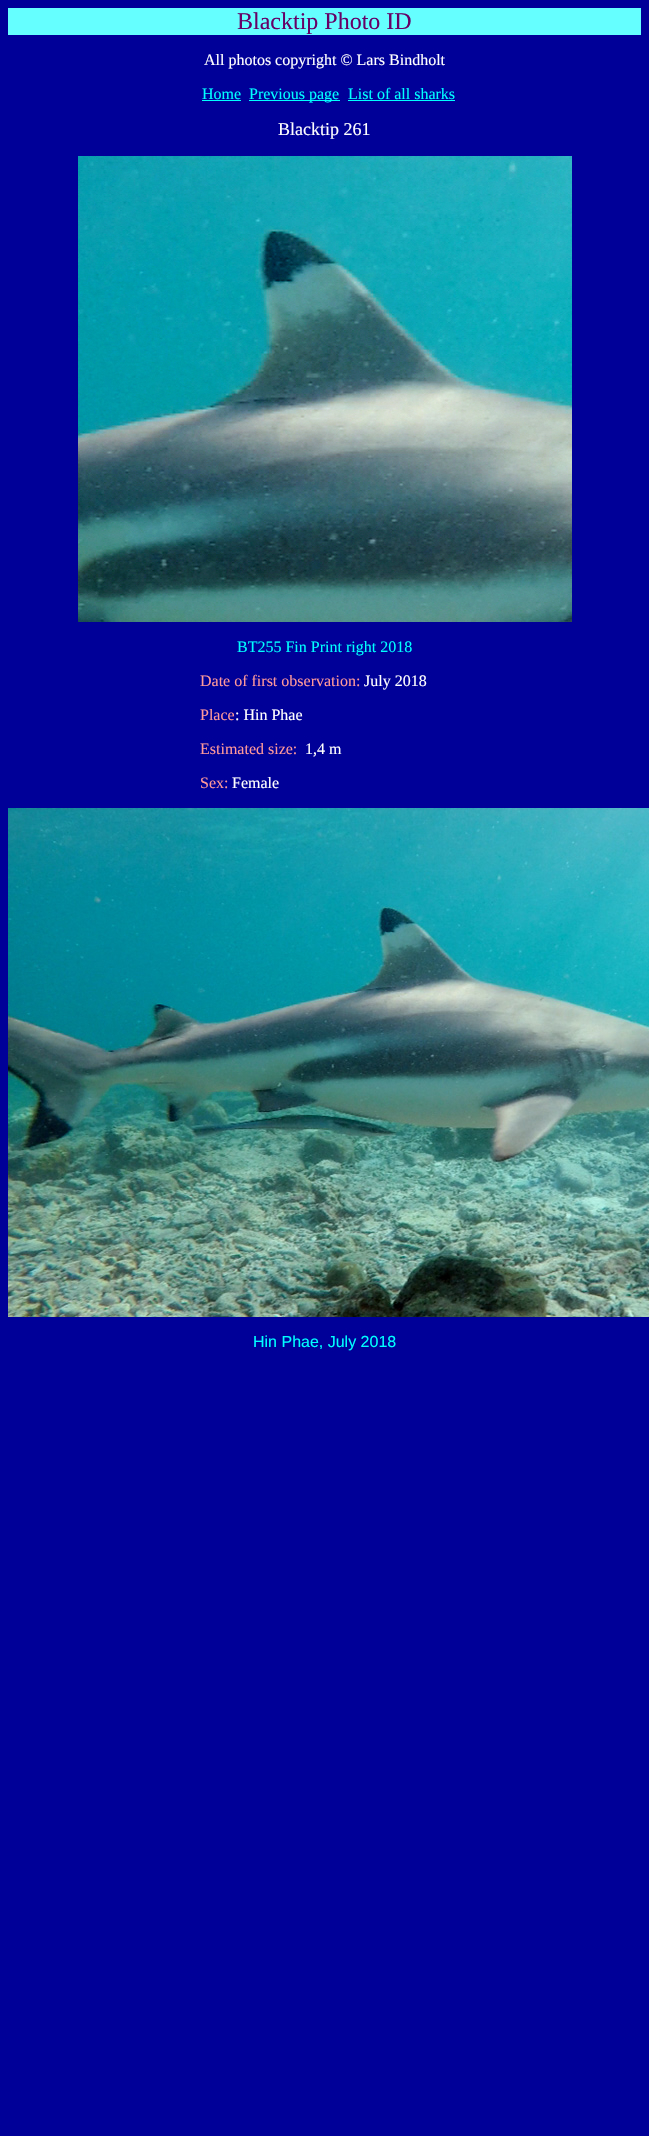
void draw(SkCanvas* c) {
SkPaint p;
p.setAntiAlias(true);
auto F=[&](const char* family, int weight, float size, bool italic = false){SkFontStyle style(weight, SkFontStyle::kNormal_Width,italic ? SkFontStyle::kItalic_Slant : SkFontStyle::kUpright_Slant);SkFont result(fontMgr->matchFamilyStyle(family, style), size);result.setSubpixel(true);return result;};
auto T=[&](const char* s, float x, float y, const SkFont& font){c->drawString(s, x, y, font, p);};
auto R=[&](float x, float y, float w, float h){c->drawRect(SkRect::MakeXYWH(x, y, w, h), p);};
auto I=[&](const char* path, float x, float y, float w, float h){auto image = SkImages::DeferredFromEncodedData(SkData::MakeFromFileName(path));c->drawImageRect(image, SkRect::MakeXYWH(x, y, w, h), SkSamplingOptions());};
c->clear(0xff000099);
p.setColor(0xff66ffff);
R(8,8,633,27);
auto f1 = F("Liberation Serif",400,24);
p.setColor(0xff660066);
T("Blacktip Photo ID",237,29,f1);
auto f2 = F("Liberation Serif",400,16);
p.setColor(0xffffffff);
T("All photos copyright © Lars Bindholt",204,65,f2);
p.setColor(0xff00ffff);
T("Home",202,99,f2);
R(202,100,39,1);
R(249,100,91,1);
T("Previous page",249,99,f2);
T("List of all sharks",348,99,f2);
R(348,100,107,1);
auto f3 = F("Liberation Serif",400,18);
p.setColor(0xffffffff);
T("Blacktip 261",278,135,f3);
I("1.png",78,156,494,466);
p.setColor(0xff00ffff);
T("BT255 Fin Print right 2018",237,652,f2);
p.setColor(0xffff9999);
T("Date of first observation:",200,686,f2);
p.setColor(0xffffffff);
T("July 2018",364,686,f2);
p.setColor(0xffff9999);
T("Place",200,720,f2);
p.setColor(0xffffffff);
T(": Hin Phae",235,720,f2);
p.setColor(0xffff9999);
T("Estimated size:",200,754,f2);
p.setColor(0xffffffff);
T("1,4 m",305,754,f2);
p.setColor(0xffff9999);
T("Sex:",200,788,f2);
p.setColor(0xffffffff);
T("Female",232,788,f2);
I("2.png",8,808,641,509);
auto f4 = F("Liberation Sans",400,16);
p.setColor(0xff00ffff);
T("Hin Phae, July 2018",253,1347,f4);
}
